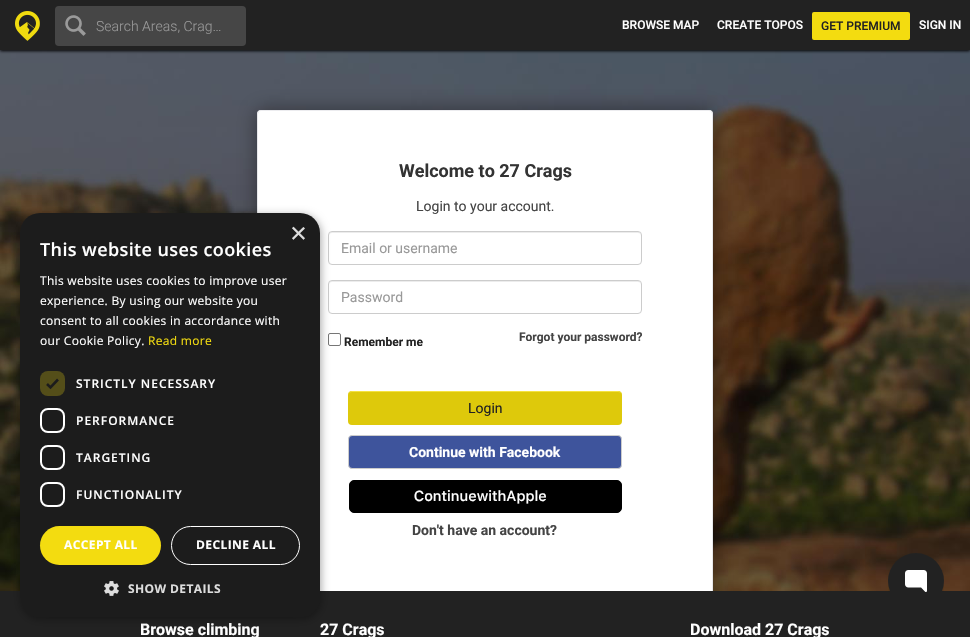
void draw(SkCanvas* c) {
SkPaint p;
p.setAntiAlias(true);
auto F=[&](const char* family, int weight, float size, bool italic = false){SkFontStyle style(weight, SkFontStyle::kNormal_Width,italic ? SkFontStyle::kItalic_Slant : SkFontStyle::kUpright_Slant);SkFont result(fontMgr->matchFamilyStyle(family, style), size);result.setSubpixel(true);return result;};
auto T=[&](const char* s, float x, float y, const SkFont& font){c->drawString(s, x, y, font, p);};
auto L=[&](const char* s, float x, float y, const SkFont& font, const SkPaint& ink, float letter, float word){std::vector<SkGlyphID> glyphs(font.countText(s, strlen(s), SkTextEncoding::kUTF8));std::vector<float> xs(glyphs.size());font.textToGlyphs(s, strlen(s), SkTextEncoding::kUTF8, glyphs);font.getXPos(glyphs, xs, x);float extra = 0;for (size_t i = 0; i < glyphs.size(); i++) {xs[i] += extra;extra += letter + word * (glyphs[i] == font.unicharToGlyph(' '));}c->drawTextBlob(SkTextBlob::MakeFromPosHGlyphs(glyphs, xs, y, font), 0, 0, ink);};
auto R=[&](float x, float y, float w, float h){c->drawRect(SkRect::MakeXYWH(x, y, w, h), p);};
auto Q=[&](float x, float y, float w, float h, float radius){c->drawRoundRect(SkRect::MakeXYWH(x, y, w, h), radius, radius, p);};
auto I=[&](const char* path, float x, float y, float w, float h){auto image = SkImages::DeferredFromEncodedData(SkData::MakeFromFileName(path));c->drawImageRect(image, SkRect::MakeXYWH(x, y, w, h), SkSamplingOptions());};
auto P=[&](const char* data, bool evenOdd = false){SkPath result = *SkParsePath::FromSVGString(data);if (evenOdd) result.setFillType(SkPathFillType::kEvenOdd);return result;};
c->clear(0xffffffff);
I("1.png",0,50,970,541);
p.setColor(0xff010101);
p.setMaskFilter(SkMaskFilter::MakeBlur(kNormal_SkBlurStyle, 1.5));
c->drawRect(SkRect::MakeXYWH(0,1,970,50),p);
p.setMaskFilter(nullptr);
p.setColor(0xff222222);
R(0,0,970,50);
I("2.png",15,11,25,30);
p.setColor(0xff464646);
Q(55,6,191,40,4);
I("3.png",65,15,21,21);
auto f1 = F("Roboto",300,14);
p.setColor(0xff999999);
T("Search Areas, Crag…",96,31,f1);
auto f2 = F("Roboto",500,12);
p.setColor(0xffffffff);
T("BROWSE MAP",622,29,f2);
T("CREATE TOPOS",717,29,f2);
p.setColor(0xfff3dc10);
Q(812,12,98,28,2);
p.setColor(0xff222222);
T("GET PREMIUM",821,30,f2);
p.setColor(0xffffffff);
T("SIGN IN",919,29,f2);
p.setColor(0x66000000);
p.setMaskFilter(SkMaskFilter::MakeBlur(kNormal_SkBlurStyle, 10));
c->drawRoundRect(SkRect::MakeXYWH(257,110,456,503),4,4,p);
p.setMaskFilter(nullptr);
p.setColor(0xffffffff);
Q(257,110,456,503,4);
p.setStroke(true);
p.setStrokeWidth(1);
p.setColor(0xbfe5e6e9);
c->drawPath(P("M258.5 111.5c.5-.5 1.5-1 2.5-1h448c1 0 2 .5 2.5 1"),p);
p.setColor(0xbfdfe0e4);
c->drawPath(P("M711.5 111.5l1 2.5v495l-1 2.5"),p);
c->drawPath(P("M258.5 611.5l-1-2.5v-495l1-2.5"),p);
auto f3 = F("Roboto",700,18);
p.setStroke(false);
p.setColor(0xff333333);
T("Welcome to 27 Crags",399,177,f3);
auto f4 = F("Roboto",400,14);
p.setColor(0xff444444);
T("Login to your account.",416,211,f4);
p.setColor(0xffececec);
c->drawPath(P("M332 233h306c2 0 3 1 3 3l-1-3l-1-1h-307c-2 0-3 2-3 4c0-2 1-3 3-3z"),p);
p.setStroke(true);
p.setColor(0xffcccccc);
c->drawRoundRect(SkRect::MakeXYWH(328.5,231.5,313,33),3.5,3.5,p);
p.setStroke(false);
p.setColor(0xff999999);
T("Email or username",341,253,f4);
p.setColor(0xffececec);
c->drawPath(P("M332 282h306c2 0 3 1 3 3l-1-3l-1-1h-307c-2 0-3 2-3 4c0-2 1-3 3-3z"),p);
p.setStroke(true);
p.setColor(0xffcccccc);
c->drawRoundRect(SkRect::MakeXYWH(328.5,280.5,313,33),3.5,3.5,p);
p.setStroke(false);
p.setColor(0xff999999);
T("Password",341,302,f4);
p.setStroke(true);
p.setColor(0xff767676);
c->drawRoundRect(SkRect::MakeXYWH(328.5,333.5,12,12),1.5,1.5,p);
auto f5 = F("Roboto",700,12);
p.setStroke(false);
p.setColor(0xff222222);
T("Remember me",344,346,f5);
p.setColor(0xff444444);
T("Forgot your password?",519,341,f5);
p.setColor(0xffdec90b);
Q(348,391,274,34,4);
p.setStroke(true);
p.setColor(0xfff5e341);
c->drawPath(P("M349.5 392.5c.5-.5 1.5-1 2.5-1h266c1 0 2 .5 2.5 1"),p);
p.setStroke(false);
p.setColor(0xff222222);
T("Login",468,413,f4);
p.setColor(0xff3e549c);
c->drawRoundRect(SkRect::MakeXYWH(348.5,435.5,273,33),3.5,3.5,p);
p.setStroke(true);
p.setColor(0xffcccccc);
c->drawRoundRect(SkRect::MakeXYWH(348.5,435.5,273,33),3.5,3.5,p);
auto f6 = F("Roboto",700,14);
p.setStroke(false);
p.setColor(0xffffffff);
T("Continue with Facebook",409,457,f6);
p.setColor(0xff000000);
c->drawRoundRect(SkRect::MakeXYWH(349.5,480.5,272,32),4.5,4.5,p);
p.setStroke(true);
c->drawRoundRect(SkRect::MakeXYWH(349.5,480.5,272,32),4.5,4.5,p);
auto f7 = F("SF Pro Text",500,14.5);
p.setStroke(false);
p.setColor(0xffffffff);
L(" Continue with Apple",410,501,f7,p,0,-4);
p.setColor(0xff444444);
T("Don't have an account?",412,535,f6);
p.setColor(0xff222222);
R(0,591,970,46);
auto f8 = F("Roboto",700,16);
p.setColor(0xffffffff);
T("Browse climbing",140,635,f8);
T("27 Crags",320,635,f8);
T("Download 27 Crags",690,635,f8);
p.setColor(0x59000000);
p.setMaskFilter(SkMaskFilter::MakeBlur(kNormal_SkBlurStyle, 4));
c->drawRoundRect(SkRect::MakeXYWH(21,215,300,404),20,20,p);
p.setMaskFilter(nullptr);
p.setColor(0xff1c1c1c);
Q(20,213,300,404,20);
auto f9 = F("Liberation Sans",400,29);
p.setColor(0xffdddddd);
T("×",290,243,f9);
auto f10 = F("Open Sans",600,18);
p.setColor(0xffffffff);
L("This website uses cookies",40,256,f10,p,.4,0);
auto f11 = F("Open Sans",400,12);
L("This website uses cookies to improve user",40,285,f11,p,.3,0);
L("experience. By using our website you",40,305,f11,p,.3,0);
L("consent to all cookies in accordance with",40,325,f11,p,.3,0);
L("our Cookie Policy.",40,345,f11,p,.3,0);
p.setColor(0xfff3dc10);
L("Read more",148,345,f11,p,.3,0);
p.setColor(0xff544e19);
Q(40,371,25,25,8);
p.setStroke(true);
p.setStrokeWidth(2.6);
p.setColor(0xff1c1c1c);
c->drawPath(P("M47 384l3.5 3.5l7.5-8"),p);
auto f12 = F("Open Sans",600,12);
p.setStroke(false);
p.setColor(0xffffffff);
L("STRICTLY NECESSARY",76,388,f12,p,1,0);
p.setStroke(true);
p.setStrokeWidth(2);
c->drawRoundRect(SkRect::MakeXYWH(41,409,23,23),7,7,p);
p.setStroke(false);
L("PERFORMANCE",76,425,f12,p,1,0);
p.setStroke(true);
c->drawRoundRect(SkRect::MakeXYWH(41,446,23,23),7,7,p);
p.setStroke(false);
L("TARGETING",76,462,f12,p,1,0);
p.setStroke(true);
c->drawRoundRect(SkRect::MakeXYWH(41,483,23,23),7,7,p);
p.setStroke(false);
L("FUNCTIONALITY",76,499,f12,p,1,0);
p.setColor(0xfff3dc10);
Q(40,526,121,39,19.5);
auto f13 = F("Open Sans",700,12);
p.setColor(0xffffffff);
L("ACCEPT ALL",64,549,f13,p,.4,0);
p.setStroke(true);
p.setStrokeWidth(1);
c->drawRoundRect(SkRect::MakeXYWH(171.5,526.5,128,38),19,19,p);
p.setStroke(false);
L("DECLINE ALL",196,549,f13,p,.4,0);
I("4.png",104,581,15,15);
p.setColor(0xffdddddd);
L("SHOW DETAILS",128,593,f13,p,.4,0);
I("5.png",888,553,56,39);
}
